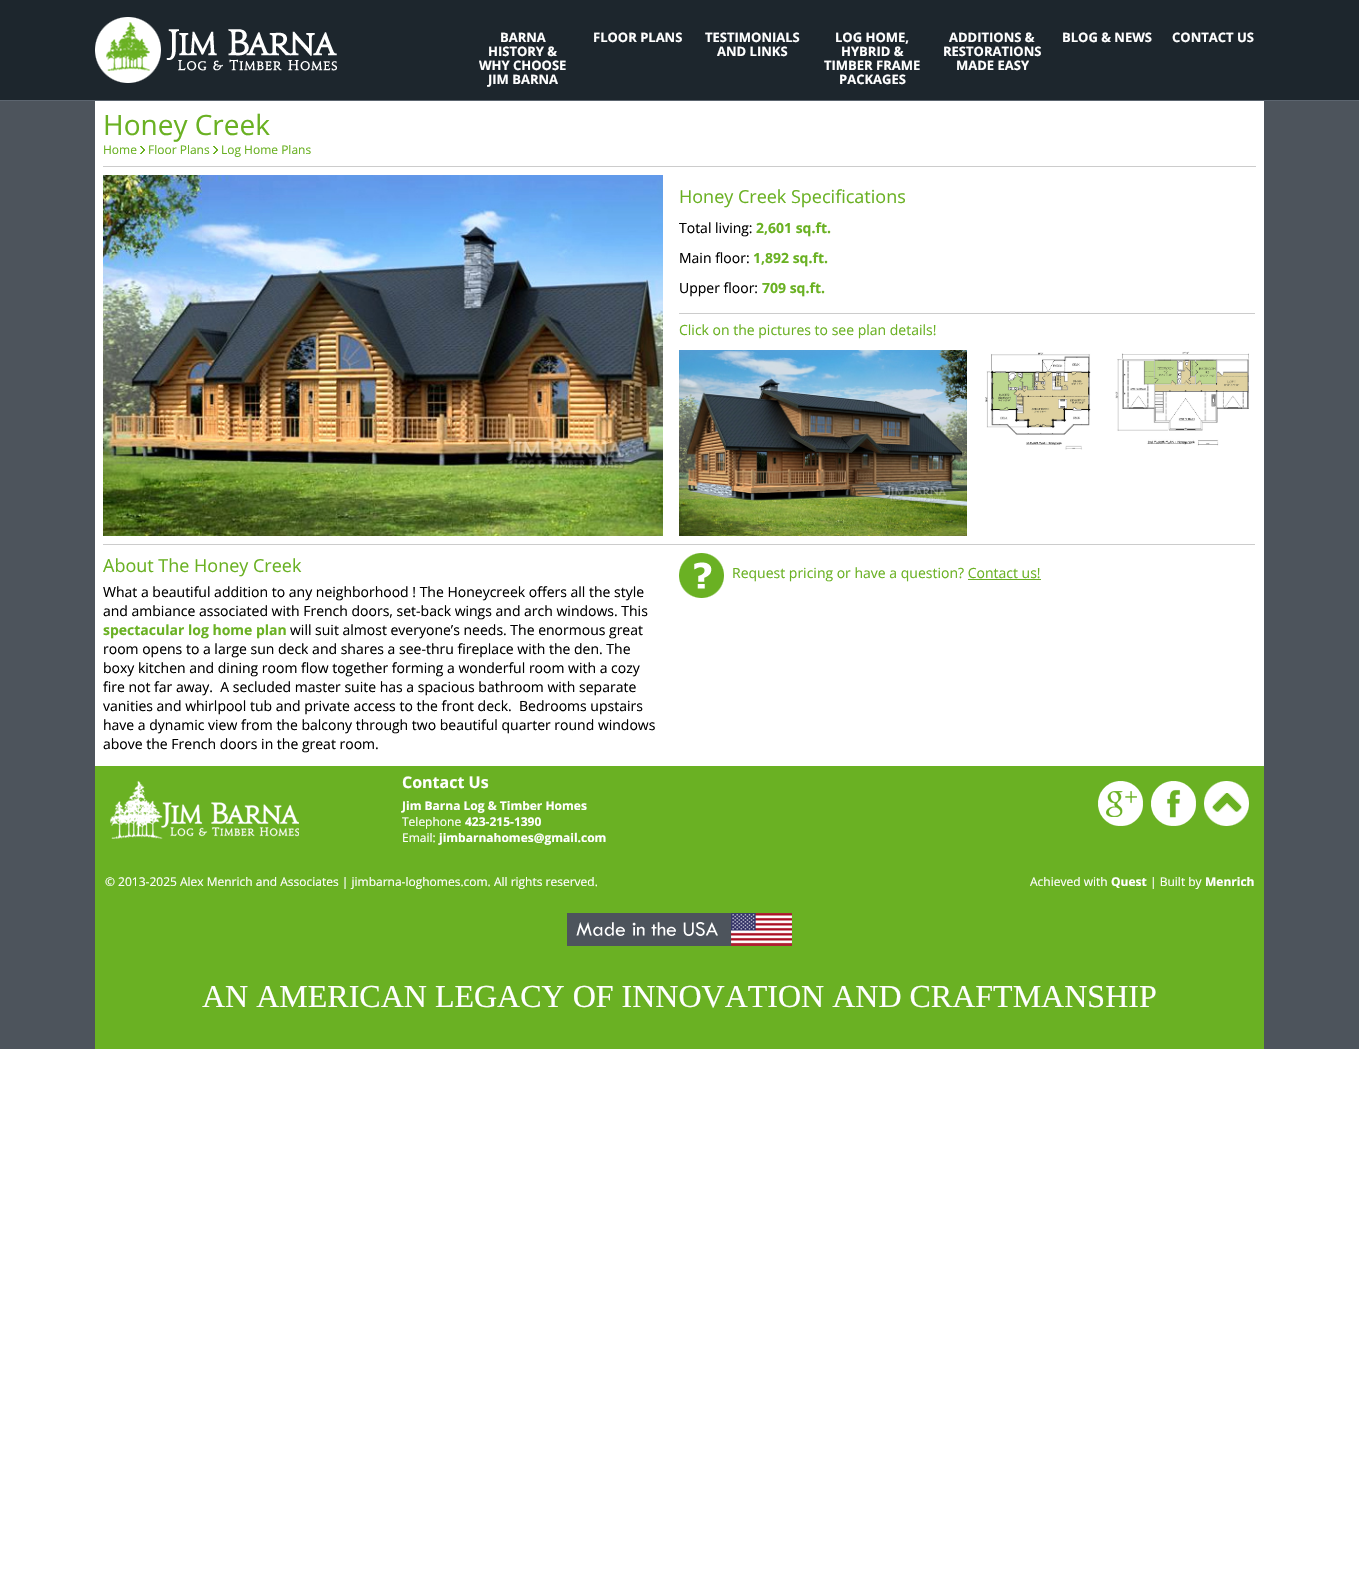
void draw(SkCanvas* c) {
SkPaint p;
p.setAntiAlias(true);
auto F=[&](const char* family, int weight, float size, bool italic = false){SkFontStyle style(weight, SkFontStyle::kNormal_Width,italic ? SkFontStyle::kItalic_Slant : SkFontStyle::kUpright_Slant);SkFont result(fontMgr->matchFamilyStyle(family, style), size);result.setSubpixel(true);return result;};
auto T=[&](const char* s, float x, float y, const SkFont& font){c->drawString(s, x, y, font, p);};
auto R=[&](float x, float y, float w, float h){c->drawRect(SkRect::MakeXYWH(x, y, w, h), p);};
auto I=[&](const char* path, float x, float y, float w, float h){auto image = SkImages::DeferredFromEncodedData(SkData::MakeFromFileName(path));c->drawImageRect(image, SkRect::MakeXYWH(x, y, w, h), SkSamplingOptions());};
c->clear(0xffffffff);
p.setColor(0xff1d262d);
R(0,0,1359,100);
p.setColor(0xff5c656f);
R(0,100,1359,1);
I("1.png",95,17,242,66);
auto f1 = F("Open Sans",700,13);
p.setColor(0xffffffff);
T("BARNA",500,42,f1);
T("HISTORY &",488,56,f1);
T("WHY CHOOSE",479,70,f1);
T("JIM BARNA",488,84,f1);
T("FLOOR PLANS",593,42,f1);
T("TESTIMONIALS",705,42,f1);
T("AND LINKS",717,56,f1);
T("LOG HOME,",835,42,f1);
T("HYBRID &",841,56,f1);
T("TIMBER FRAME",824,70,f1);
T("PACKAGES",839,84,f1);
T("ADDITIONS &",949,42,f1);
T("RESTORATIONS",943,56,f1);
T("MADE EASY",956,70,f1);
T("BLOG & NEWS",1062,42,f1);
T("CONTACT US",1172,42,f1);
p.setColor(0xff4d545c);
R(0,101,1359,948);
p.setColor(0xffffffff);
R(95,101,1169,665);
p.setColor(0xffcccccc);
R(103,166,1153,1);
auto f2 = F("Open Sans",400,28);
p.setColor(0xff6ab123);
T("Honey Creek",103,135,f2);
auto f3 = F("Open Sans",400,12);
T("Home",103,154,f3);
I("2.png",140,146,5,8);
T("Floor Plans",148,154,f3);
I("2.png",213,146,5,8);
T("Log Home Plans",221,154,f3);
p.setColor(0xffcccccc);
R(103,544,1152,1);
I("3.png",103,175,560,361);
auto f4 = F("Open Sans",400,18);
p.setColor(0xff6ab123);
T("Honey Creek Specifications",679,203,f4);
auto f5 = F("Open Sans",400,14);
p.setColor(0xff000000);
T("Total living:",679,233,f5);
auto f6 = F("Open Sans",700,14);
p.setColor(0xff6ab123);
T("2,601 sq.ft.",756,233,f6);
p.setColor(0xff000000);
T("Main floor:",679,263,f5);
p.setColor(0xff6ab123);
T("1,892 sq.ft.",753,263,f6);
p.setColor(0xff000000);
T("Upper floor:",679,293,f5);
p.setColor(0xff6ab123);
T("709 sq.ft.",762,293,f6);
p.setColor(0xffcccccc);
R(679,313,576,1);
p.setColor(0xff6ab123);
T("Click on the pictures to see plan details!",679,335,f5);
I("4.png",679,350,288,186);
I("5.png",985,352,106,98);
I("6.png",1115,351,134,95);
T("About The Honey Creek",103,572,f4);
p.setColor(0xff000000);
T("What a beautiful addition to any neighborhood ! The Honeycreek offers all the style",103,597,f5);
T("and ambiance associated with French doors, set-back wings and arch windows. This",103,616,f5);
p.setColor(0xff6ab123);
T("spectacular log home plan",103,635,f6);
p.setColor(0xff000000);
T("will suit almost everyone’s needs. The enormous great",290,635,f5);
T("room opens to a large sun deck and shares a see-thru fireplace with the den. The",103,654,f5);
T("boxy kitchen and dining room flow together forming a wonderful room with a cozy",103,673,f5);
T("fire not far away.  A secluded master suite has a spacious bathroom with separate",103,692,f5);
T("vanities and whirlpool tub and private access to the front deck.  Bedrooms upstairs",103,711,f5);
T("have a dynamic view from the balcony through two beautiful quarter round windows",103,730,f5);
T("above the French doors in the great room.",103,749,f5);
I("7.png",679,553,45,45);
p.setColor(0xff6ab123);
T("Request pricing or have a question? Contact us!",732,578,f5);
R(968,579,73,1);
R(95,766,1169,283);
I("8.png",110,781,189,58);
auto f7 = F("Open Sans",700,16);
p.setColor(0xffffffff);
T("Contact Us",402,788,f7);
auto f8 = F("Open Sans",700,12);
T("Jim Barna Log & Timber Homes",402,810,f8);
T("Telephone",402,826,f3);
T("423-215-1390",465,826,f8);
T("Email:",402,842,f3);
T("jimbarnahomes@gmail.com",439,842,f8);
I("9.png",1098,781,45,45);
I("10.png",1151,781,45,45);
I("11.png",1204,781,45,45);
T("© 2013-2025 Alex Menrich and Associates | jimbarna-loghomes.com. All rights reserved.",105,886,f3);
T("Achieved with",1030,886,f3);
T("Quest",1111,886,f8);
T("| Built by",1150,886,f3);
T("Menrich",1205,886,f8);
I("12.png",567,913,225,33);
auto f9 = F("Liberation Serif",400,32);
T("AN AMERICAN LEGACY OF INNOVATION AND CRAFTMANSHIP",202,1007,f9);
}
